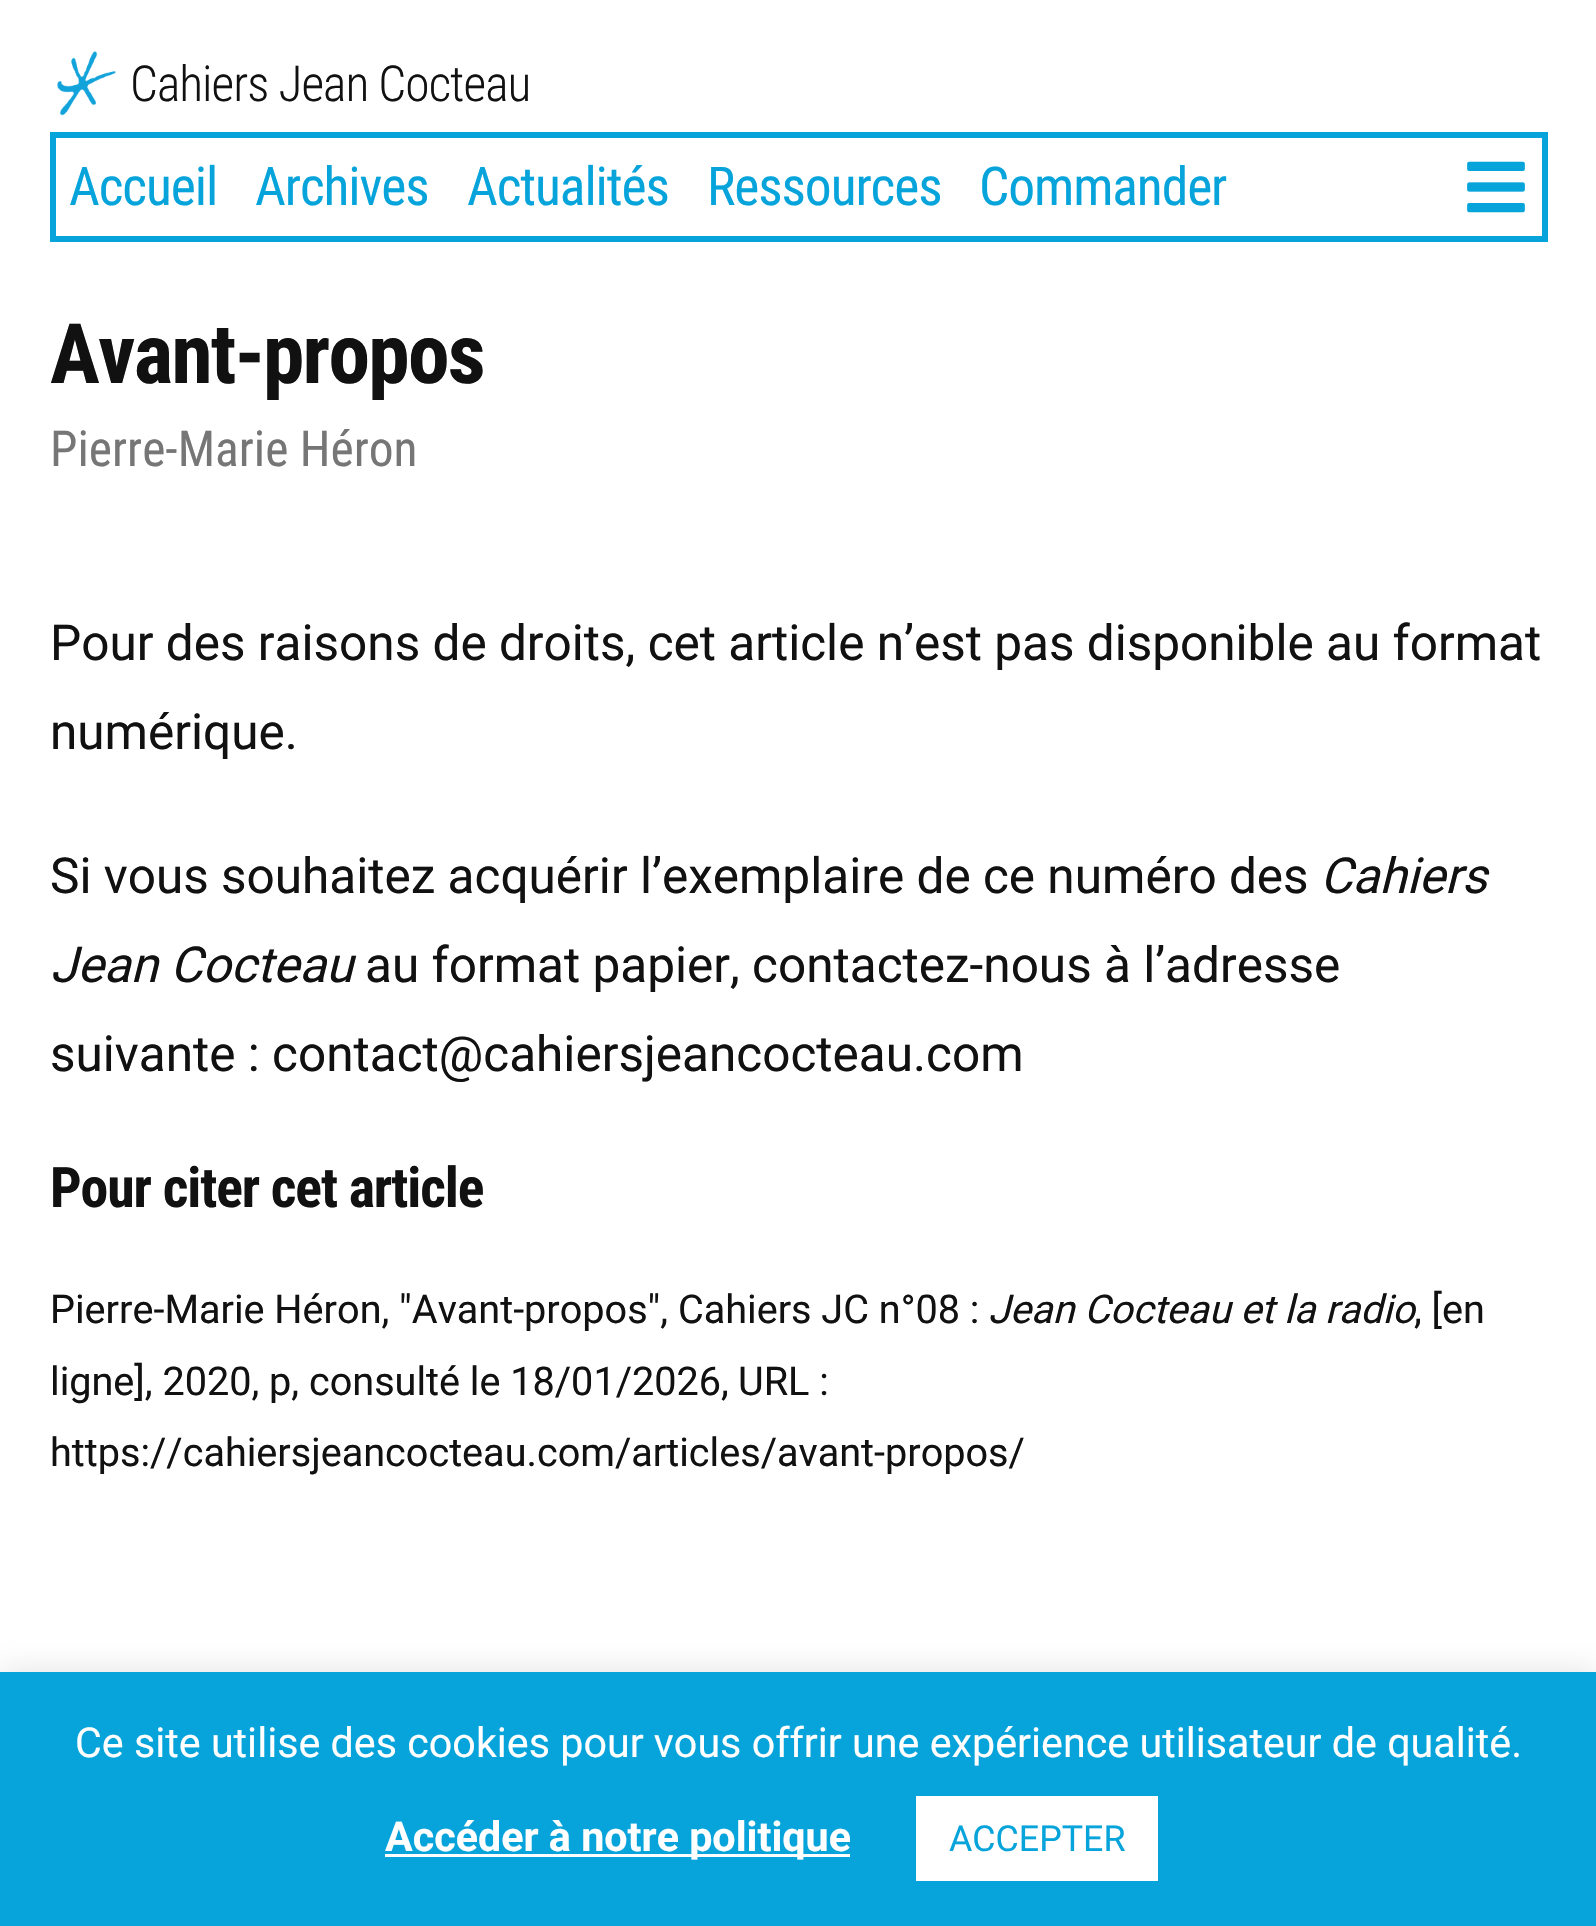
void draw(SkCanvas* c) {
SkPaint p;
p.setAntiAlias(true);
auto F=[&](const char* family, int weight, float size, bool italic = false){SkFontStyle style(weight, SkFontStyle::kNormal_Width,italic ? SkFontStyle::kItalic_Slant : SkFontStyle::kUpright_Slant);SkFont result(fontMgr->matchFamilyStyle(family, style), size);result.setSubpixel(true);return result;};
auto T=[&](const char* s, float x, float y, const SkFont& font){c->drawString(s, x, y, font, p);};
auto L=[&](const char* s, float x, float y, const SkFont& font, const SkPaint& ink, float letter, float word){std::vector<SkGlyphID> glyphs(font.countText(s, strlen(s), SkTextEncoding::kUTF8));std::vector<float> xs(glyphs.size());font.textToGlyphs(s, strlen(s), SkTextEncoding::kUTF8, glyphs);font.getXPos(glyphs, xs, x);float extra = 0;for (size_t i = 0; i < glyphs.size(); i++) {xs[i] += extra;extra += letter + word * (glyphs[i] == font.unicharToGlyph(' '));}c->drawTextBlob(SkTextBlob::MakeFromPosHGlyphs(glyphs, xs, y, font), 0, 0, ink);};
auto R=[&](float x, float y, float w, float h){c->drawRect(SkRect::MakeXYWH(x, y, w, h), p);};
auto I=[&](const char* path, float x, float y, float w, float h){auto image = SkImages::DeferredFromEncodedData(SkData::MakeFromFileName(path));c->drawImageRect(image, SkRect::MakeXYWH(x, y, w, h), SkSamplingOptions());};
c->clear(0xffffffff);
I("1.png",57,51,59,65);
auto f1 = F("Roboto Condensed",300,49.5);
p.setColor(0xff111111);
L("Cahiers Jean Cocteau",130,101,f1,p,-1,0);
p.setStroke(true);
p.setStrokeWidth(6);
p.setColor(0xff07a4db);
c->drawRect(SkRect::MakeXYWH(53,135,1492,104),p);
auto f2 = F("Roboto Condensed",400,53.5);
p.setStroke(false);
L("Accueil",69,205,f2,p,-1.1,0);
L("Archives",255,205,f2,p,-1.1,0);
L("Actualités",467,205,f2,p,-1.1,0);
L("Ressources",707,205,f2,p,-1.1,0);
L("Commander",979,205,f2,p,-1.1,0);
I("2.png",1467,161,58,52);
auto f3 = F("Roboto Condensed",700,83.5);
p.setColor(0xff111111);
L("Avant-propos",50,383,f3,p,-1.75,0);
auto f4 = F("Roboto Condensed",400,49.5);
p.setColor(0xff767676);
T("Pierre-Marie Héron",50,466,f4);
auto f5 = F("Roboto",400,49.5);
p.setColor(0xff111111);
T("Pour des raisons de droits, cet article n’est pas disponible au format",50,660,f5);
T("numérique.",50,749,f5);
T("Si vous souhaitez acquérir l’exemplaire de ce numéro des",50,893,f5);
auto f6 = F("Roboto",400,49.5,true);
T("Cahiers",1320,893,f6);
T("Jean Cocteau",50,982,f6);
T("au format papier, contactez-nous à l’adresse",365,982,f5);
T("suivante : contact@cahiersjeancocteau.com",50,1071,f5);
auto f7 = F("Roboto Condensed",700,55.75);
L("Pour citer cet article",50,1207,f7,p,-1.1,0);
auto f8 = F("Roboto",400,39.6);
T("Pierre-Marie Héron, \"Avant-propos\", Cahiers JC n°08 :",50,1323,f8);
auto f9 = F("Roboto",400,39.6,true);
T("Jean Cocteau et la radio",988,1323,f9);
T(", [en",1414,1323,f8);
T("ligne], 2020, p, consulté le 18/01/2026,",50,1395,f8);
T("URL :",738,1395,f8);
T("https://cahiersjeancocteau.com/articles/avant-propos/",50,1466,f8);
p.setColor(0x4dacabab);
p.setMaskFilter(SkMaskFilter::MakeBlur(kNormal_SkBlurStyle, 14));
c->drawRect(SkRect::MakeXYWH(0,1669,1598,256),p);
p.setMaskFilter(nullptr);
p.setColor(0xff07a4db);
R(0,1672,1596,254);
auto f10 = F("Roboto",400,41.25);
p.setColor(0xffffffff);
T("Ce site utilise des cookies pour vous offrir une expérience utilisateur de qualité.",75,1757,f10);
R(385,1854,465,3);
auto f11 = F("Roboto",700,41.25);
T("Accéder à notre politique",385,1851,f11);
R(916,1796,242,85);
auto f12 = F("Roboto",400,35.75);
p.setColor(0xff07a4db);
T("ACCEPTER",949,1851,f12);
}
